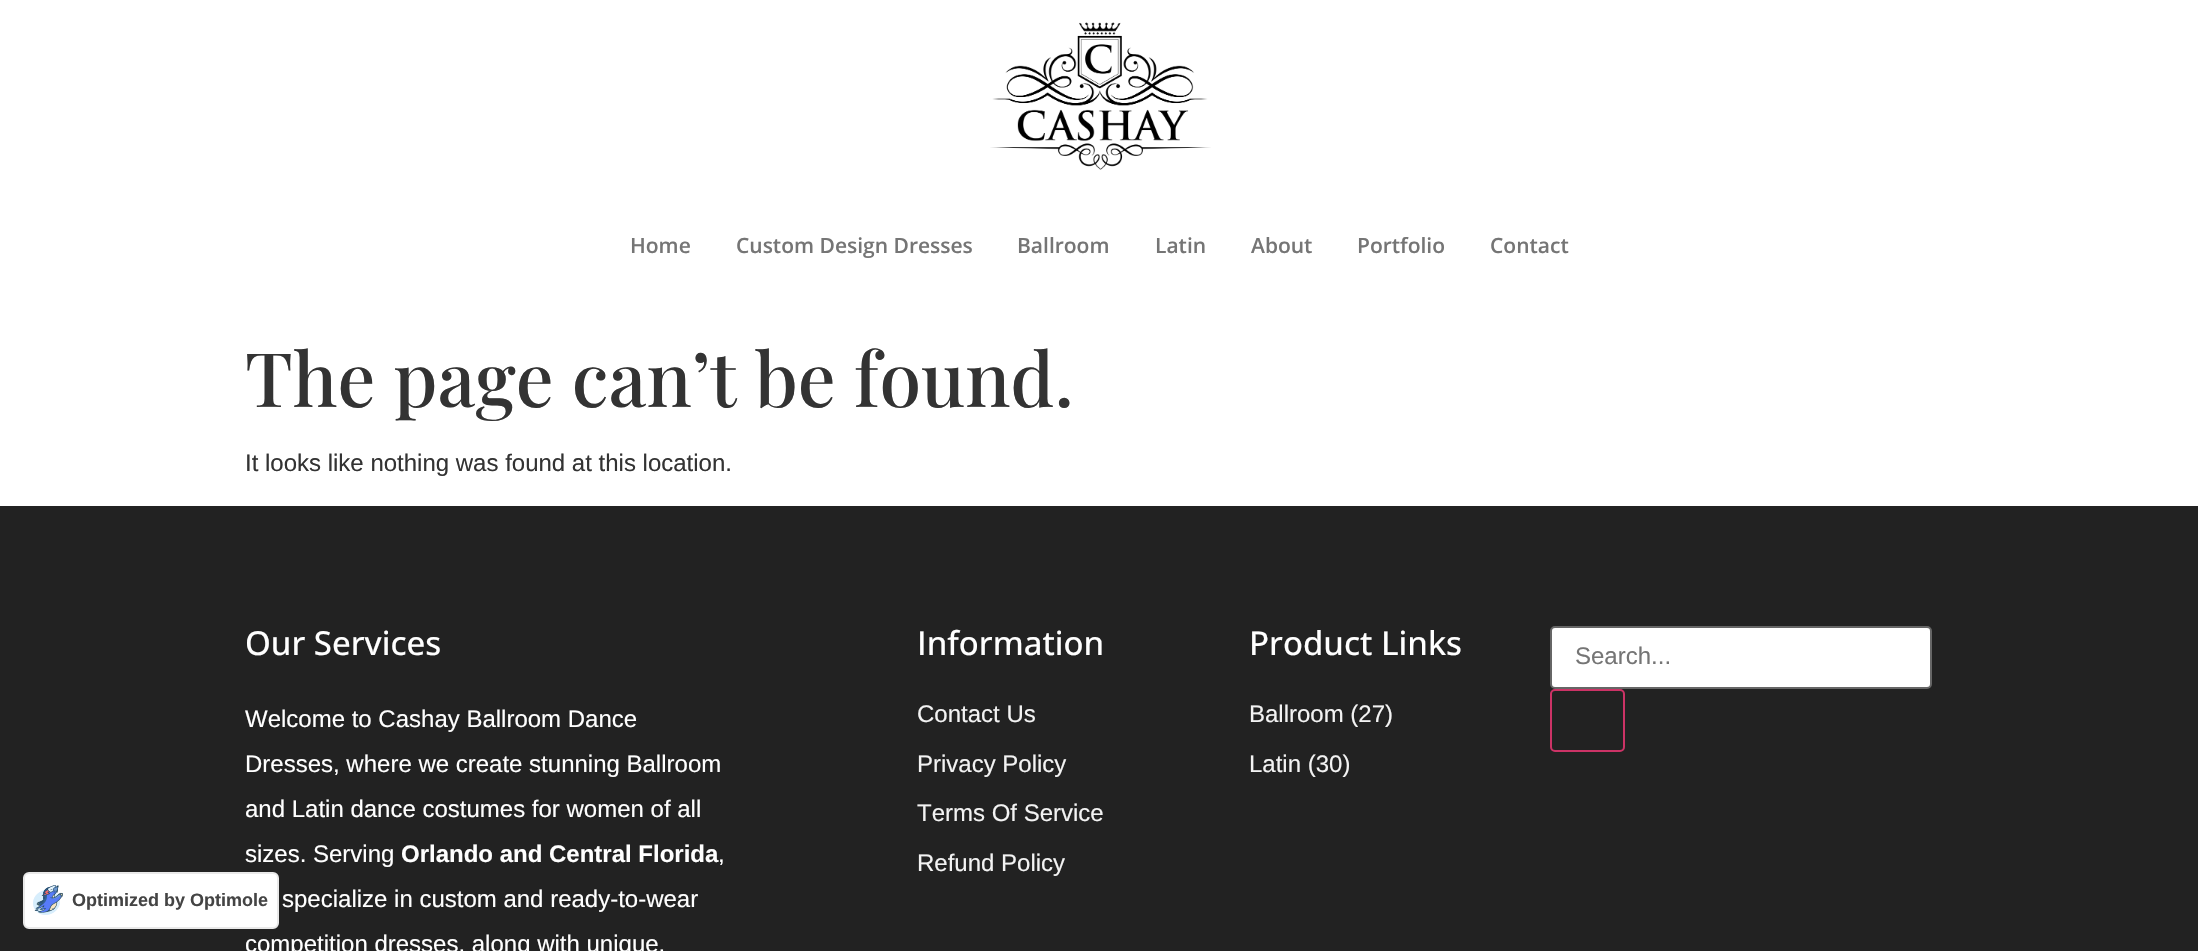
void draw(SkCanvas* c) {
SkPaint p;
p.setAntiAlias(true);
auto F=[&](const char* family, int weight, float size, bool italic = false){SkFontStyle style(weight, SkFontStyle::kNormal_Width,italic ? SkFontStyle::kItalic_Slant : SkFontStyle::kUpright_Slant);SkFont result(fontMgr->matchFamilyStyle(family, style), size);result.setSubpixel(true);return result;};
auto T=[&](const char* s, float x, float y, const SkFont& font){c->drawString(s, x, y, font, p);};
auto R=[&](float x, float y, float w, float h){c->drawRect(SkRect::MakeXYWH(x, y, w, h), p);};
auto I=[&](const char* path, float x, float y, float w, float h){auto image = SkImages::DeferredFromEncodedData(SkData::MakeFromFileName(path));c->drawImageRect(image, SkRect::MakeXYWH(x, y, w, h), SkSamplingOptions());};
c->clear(0xffffffff);
I("1.png",990,22,221,148);
auto f1 = F("Open Sans",600,21);
p.setColor(0xff757575);
T("Home",630,253,f1);
T("Custom Design Dresses",736,253,f1);
T("Ballroom",1017,253,f1);
T("Latin",1155,253,f1);
T("About",1251,253,f1);
T("Portfolio",1357,253,f1);
T("Contact",1490,253,f1);
auto f2 = F("Playfair Display",500,75);
p.setColor(0xff333333);
T("The page can’t be found.",245,407,f2);
auto f3 = F("Liberation Sans",400,24);
T("It looks like nothing was found at this location.",245,471,f3);
p.setColor(0xff222222);
R(0,506,2198,445);
p.setColor(0xffffffff);
c->drawRoundRect(SkRect::MakeXYWH(24,873,254,55),5,5,p);
p.setStroke(true);
p.setStrokeWidth(2);
p.setColor(0xffe9e9e9);
c->drawRoundRect(SkRect::MakeXYWH(24,873,254,55),5,5,p);
I("2.png",33,885,30,30);
auto f4 = F("Liberation Sans",700,18);
p.setStroke(false);
p.setColor(0xff444444);
T("Optimized by Optimole",72,906,f4);
auto f5 = F("Open Sans",500,33);
p.setColor(0xffffffff);
T("Our Services",245,655,f5);
T("Welcome to Cashay Ballroom Dance",245,727,f3);
T("Dresses, where we create stunning Ballroom",245,772,f3);
T("and Latin dance costumes for women of all",245,817,f3);
T("sizes. Serving",245,862,f3);
auto f6 = F("Liberation Sans",700,24);
T("Orlando and Central Florida",401,862,f6);
T(",",718,862,f3);
T("specialize in custom and ready-to-wear",282,907,f3);
T("competition dresses, along with unique,",245,952,f3);
T("Information",917,655,f5);
p.setColor(0xfff3f3f3);
T("Contact Us",917,722,f3);
T("Privacy Policy",917,772,f3);
T("Terms Of Service",917,821,f3);
T("Refund Policy",917,871,f3);
p.setColor(0xffffffff);
T("Product Links",1249,655,f5);
p.setColor(0xfff3f3f3);
T("Ballroom (27)",1249,722,f3);
T("Latin (30)",1249,772,f3);
p.setColor(0xffffffff);
c->drawRoundRect(SkRect::MakeXYWH(1551,627,380,61),4,4,p);
p.setStroke(true);
p.setColor(0xff666666);
c->drawRoundRect(SkRect::MakeXYWH(1551,627,380,61),4,4,p);
p.setStroke(false);
p.setColor(0xff757575);
T("Search...",1575,664,f3);
p.setStroke(true);
p.setColor(0xffcc3366);
c->drawRoundRect(SkRect::MakeXYWH(1551,690,73,61),4,4,p);
}
